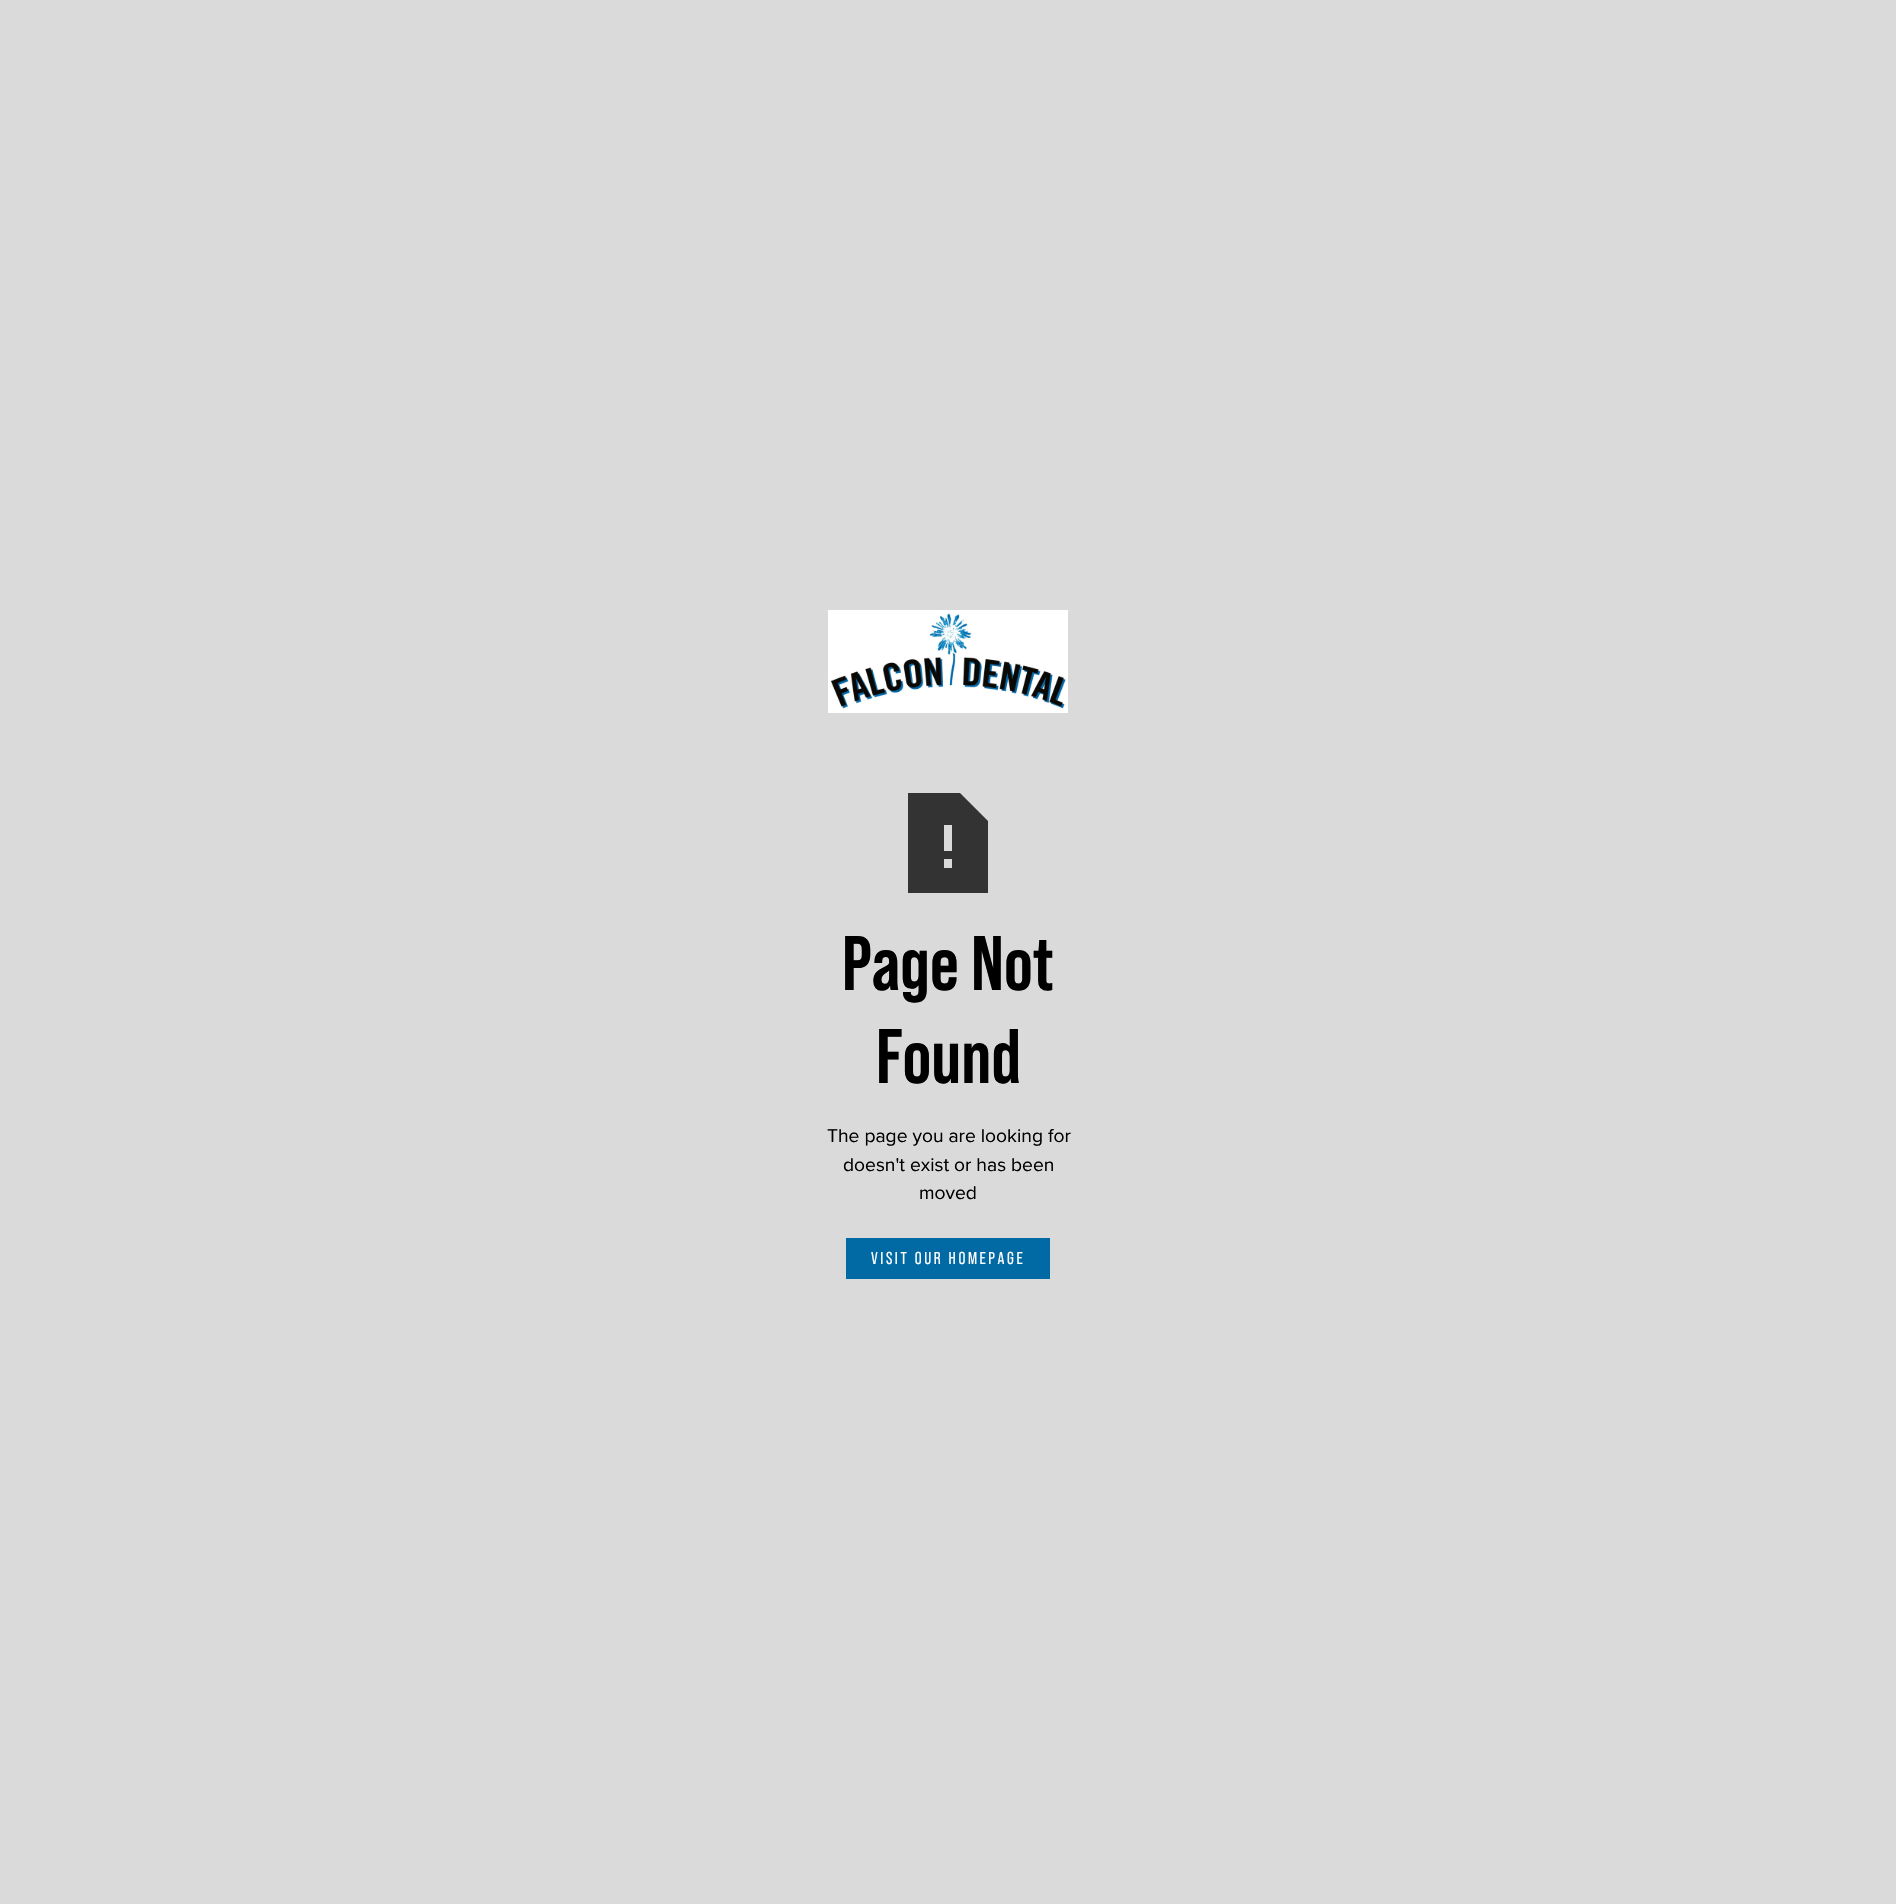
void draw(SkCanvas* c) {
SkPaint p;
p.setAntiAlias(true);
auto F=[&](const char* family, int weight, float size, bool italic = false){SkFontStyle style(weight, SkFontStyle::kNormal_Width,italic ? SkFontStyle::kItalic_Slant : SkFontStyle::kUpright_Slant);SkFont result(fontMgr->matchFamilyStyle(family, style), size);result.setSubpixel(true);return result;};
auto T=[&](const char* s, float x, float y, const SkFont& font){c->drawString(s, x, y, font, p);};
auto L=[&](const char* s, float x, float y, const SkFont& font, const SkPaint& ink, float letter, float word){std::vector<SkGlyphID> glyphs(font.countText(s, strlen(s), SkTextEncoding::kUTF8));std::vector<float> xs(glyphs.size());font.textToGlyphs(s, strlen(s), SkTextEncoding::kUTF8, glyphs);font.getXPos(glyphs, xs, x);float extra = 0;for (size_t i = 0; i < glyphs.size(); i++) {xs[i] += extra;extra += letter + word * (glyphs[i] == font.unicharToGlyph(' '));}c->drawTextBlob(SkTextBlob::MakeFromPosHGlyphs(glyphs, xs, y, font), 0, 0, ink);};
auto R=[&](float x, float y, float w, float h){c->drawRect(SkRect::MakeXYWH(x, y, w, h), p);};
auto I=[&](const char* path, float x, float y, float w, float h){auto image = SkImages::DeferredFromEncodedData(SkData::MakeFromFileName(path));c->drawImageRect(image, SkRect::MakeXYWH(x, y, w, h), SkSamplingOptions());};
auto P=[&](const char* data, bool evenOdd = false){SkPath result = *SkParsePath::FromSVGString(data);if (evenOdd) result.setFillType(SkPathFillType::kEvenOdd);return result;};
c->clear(0xffdadada);
I("1.png",828,610,240,103);
p.setColor(0xff333333);
c->drawPath(P("M908 793h52l28 28v72h-80zm36 32h8v26h-8zm0 34h8v9h-8z",true),p);
auto f1 = F("Bebas Neue",700,77);
p.setColor(0xff000000);
T("Page Not",842,990,f1);
T("Found",876,1083,f1);
auto f2 = F("Proxima Nova",400,19.25);
T("The page you are looking for",827,1142,f2);
T("doesn't exist or has been",843,1171,f2);
T("moved",919,1199,f2);
p.setColor(0xff016aa4);
R(846,1238,204,41);
auto f3 = F("Bebas Neue",400,17.25);
p.setColor(0xffffffff);
L("VISIT OUR HOMEPAGE",871,1264,f3,p,2.6,0);
}
